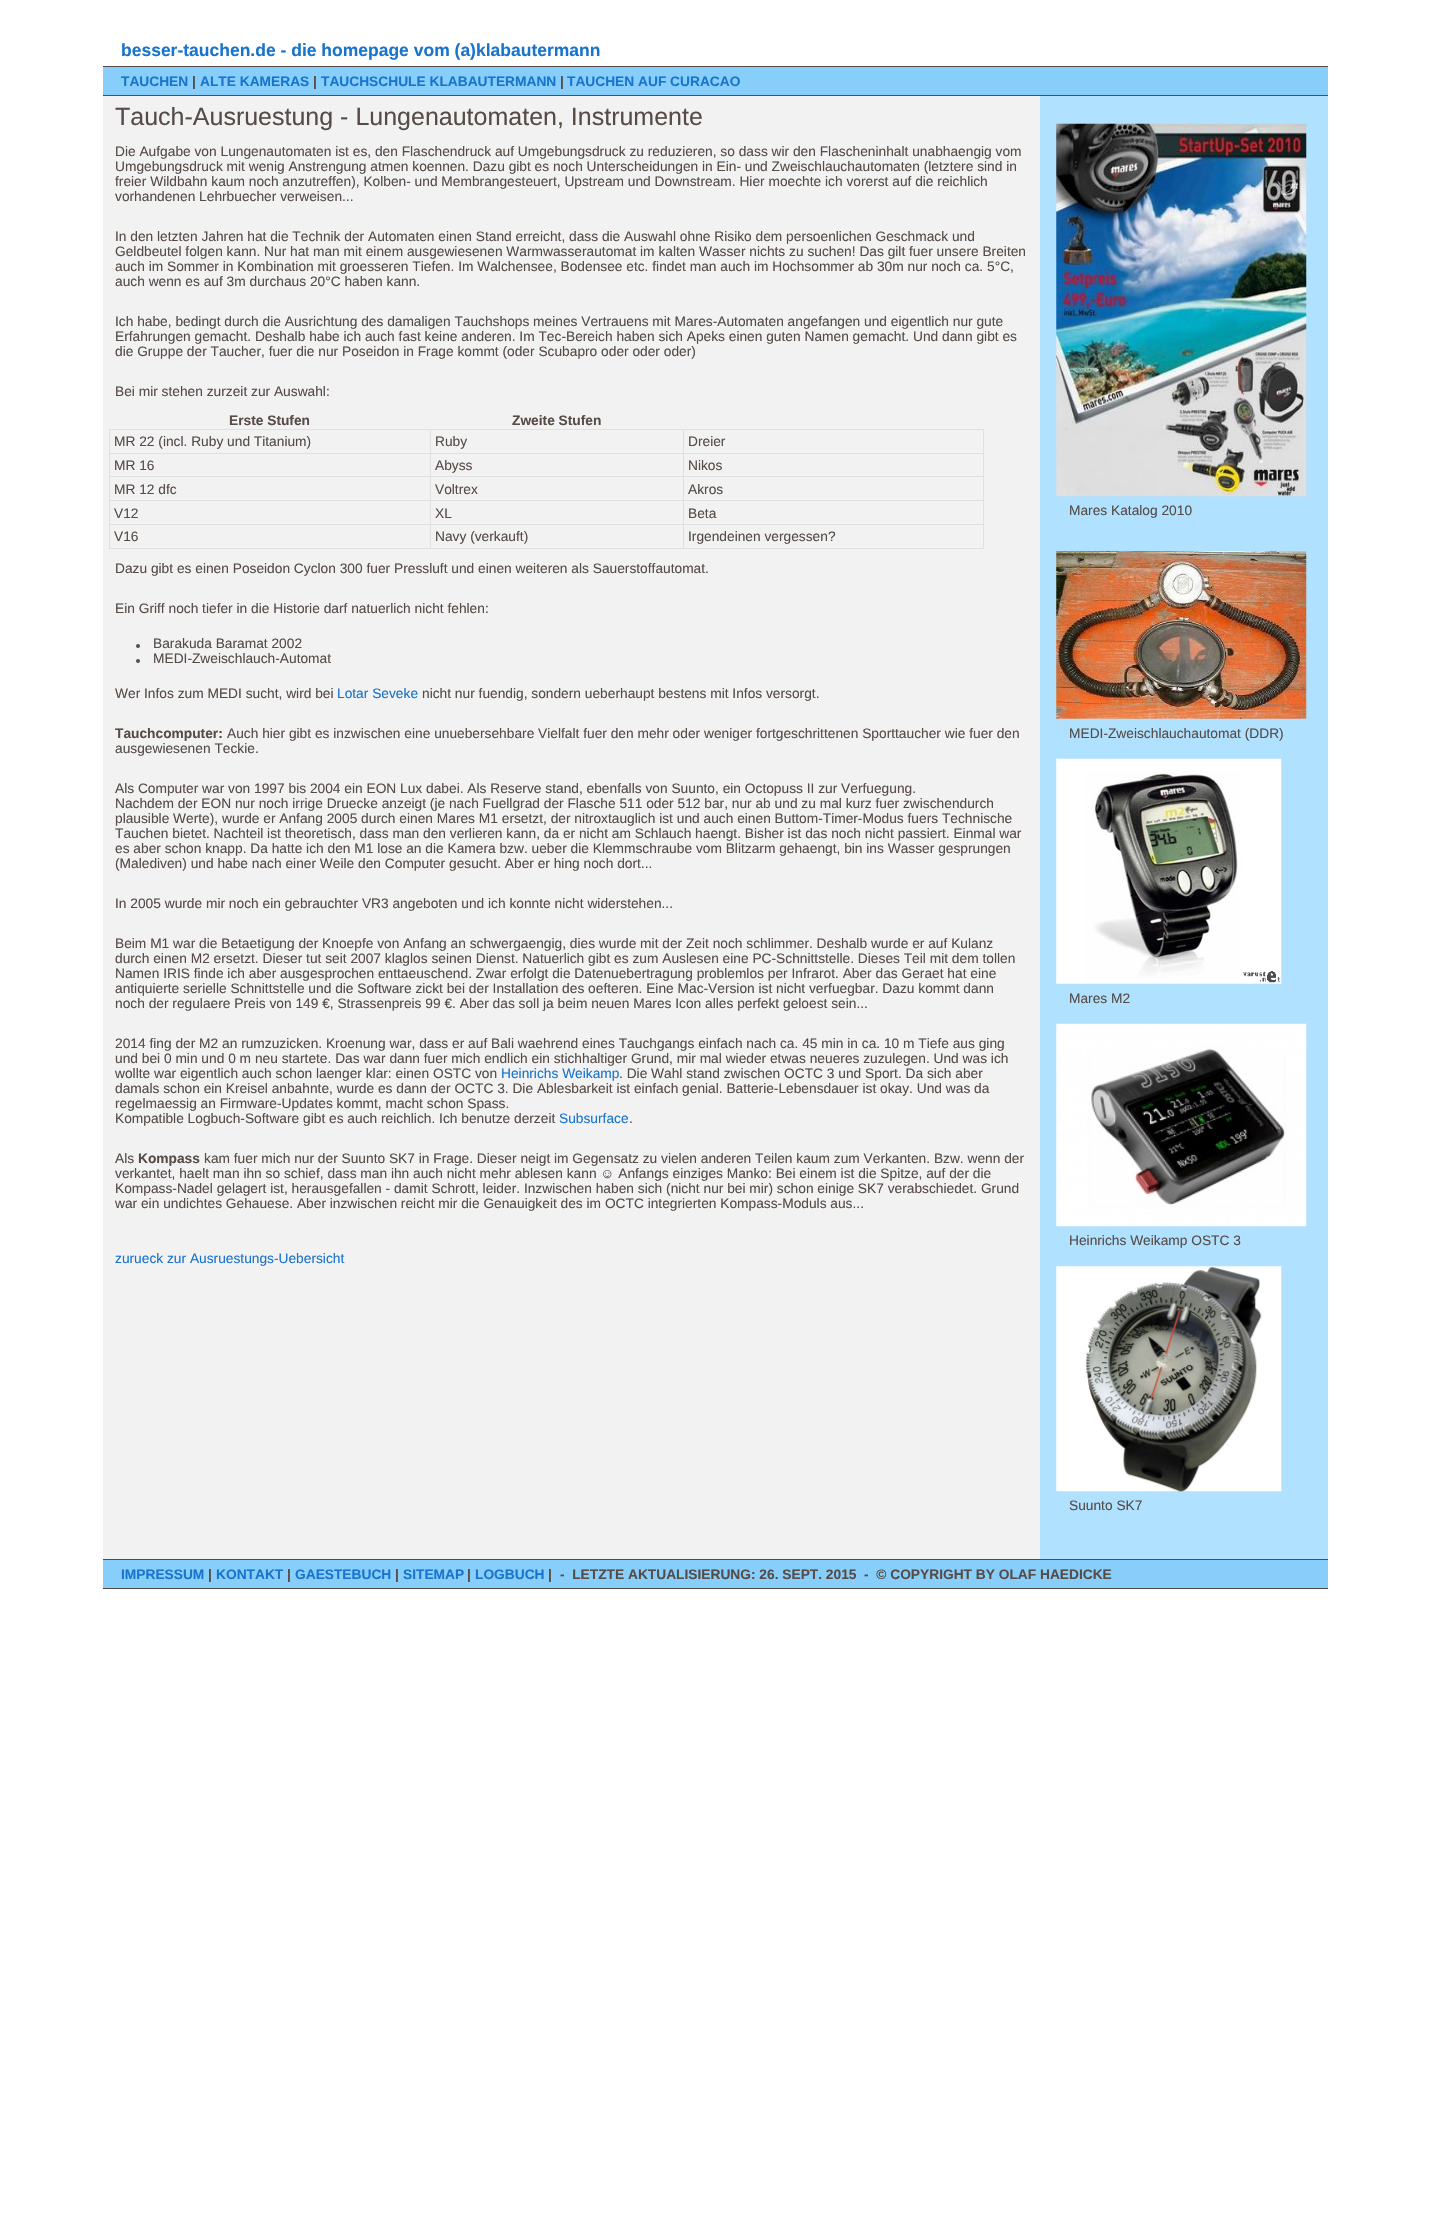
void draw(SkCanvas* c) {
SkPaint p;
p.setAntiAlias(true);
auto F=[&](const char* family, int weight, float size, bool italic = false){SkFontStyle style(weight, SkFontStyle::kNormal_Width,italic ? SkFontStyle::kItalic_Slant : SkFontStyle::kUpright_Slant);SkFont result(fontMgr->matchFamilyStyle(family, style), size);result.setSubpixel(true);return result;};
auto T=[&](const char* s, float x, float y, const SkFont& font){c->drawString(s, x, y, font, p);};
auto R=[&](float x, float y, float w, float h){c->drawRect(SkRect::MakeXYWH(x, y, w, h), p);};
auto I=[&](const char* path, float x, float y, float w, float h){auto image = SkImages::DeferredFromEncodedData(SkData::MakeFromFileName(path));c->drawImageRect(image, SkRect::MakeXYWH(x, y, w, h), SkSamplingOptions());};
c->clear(0xffffffff);
auto f1 = F("Liberation Sans",700,17.5);
p.setColor(0xff1874cd);
T("besser-tauchen.de - die homepage vom (a)klabautermann",121,56,f1);
p.setColor(0xff87cefa);
R(103,67,1225,28);
p.setColor(0xff564b47);
R(103,66,1225,1);
R(103,95,1225,1);
auto f2 = F("Liberation Sans",700,13.75);
p.setColor(0xff1874cd);
T("TAUCHEN",121,86,f2);
p.setColor(0xff564b47);
T("|",192,86,f2);
p.setColor(0xff1874cd);
T("ALTE KAMERAS",200,86,f2);
p.setColor(0xff564b47);
T("|",313,86,f2);
p.setColor(0xff1874cd);
T("TAUCHSCHULE KLABAUTERMANN",321,86,f2);
p.setColor(0xff564b47);
T("|",560,86,f2);
p.setColor(0xff1874cd);
T("TAUCHEN AUF CURACAO",567,86,f2);
p.setColor(0xffb0e2ff);
R(1040,96,288,1463);
p.setColor(0xfff2f2f2);
R(103,96,937,1463);
auto f3 = F("Liberation Sans",400,25);
p.setColor(0xff564b47);
T("Tauch-Ausruestung - Lungenautomaten, Instrumente",115,125,f3);
auto f4 = F("Liberation Sans",400,13.75);
T("Die Aufgabe von Lungenautomaten ist es, den Flaschendruck auf Umgebungsdruck zu reduzieren, so dass wir den Flascheninhalt unabhaengig vom",115,156,f4);
T("Umgebungsdruck mit wenig Anstrengung atmen koennen. Dazu gibt es noch Unterscheidungen in Ein- und Zweischlauchautomaten (letztere sind in",115,171,f4);
T("freier Wildbahn kaum noch anzutreffen), Kolben- und Membrangesteuert, Upstream und Downstream. Hier moechte ich vorerst auf die reichlich",115,186,f4);
T("vorhandenen Lehrbuecher verweisen...",115,201,f4);
T("In den letzten Jahren hat die Technik der Automaten einen Stand erreicht, dass die Auswahl ohne Risiko dem persoenlichen Geschmack und",115,241,f4);
T("Geldbeutel folgen kann. Nur hat man mit einem ausgewiesenen Warmwasserautomat im kalten Wasser nichts zu suchen! Das gilt fuer unsere Breiten",115,256,f4);
T("auch im Sommer in Kombination mit groesseren Tiefen. Im Walchensee, Bodensee etc. findet man auch im Hochsommer ab 30m nur noch ca. 5°C,",115,271,f4);
T("auch wenn es auf 3m durchaus 20°C haben kann.",115,286,f4);
T("Ich habe, bedingt durch die Ausrichtung des damaligen Tauchshops meines Vertrauens mit Mares-Automaten angefangen und eigentlich nur gute",115,326,f4);
T("Erfahrungen gemacht. Deshalb habe ich auch fast keine anderen. Im Tec-Bereich haben sich Apeks einen guten Namen gemacht. Und dann gibt es",115,341,f4);
T("die Gruppe der Taucher, fuer die nur Poseidon in Frage kommt (oder Scubapro oder oder oder)",115,356,f4);
T("Bei mir stehen zurzeit zur Auswahl:",115,396,f4);
T("Erste Stufen",229,425,f2);
T("Zweite Stufen",512,425,f2);
p.setColor(0xffe0e0e0);
R(683,429,301,1);
R(683,453,301,1);
R(683,476,301,1);
R(683,500,301,1);
R(683,524,301,1);
R(983,524,1,25);
R(683,548,301,1);
R(683,524,1,25);
R(430,524,254,1);
R(683,500,1,25);
R(430,500,254,1);
R(683,476,1,25);
R(430,476,254,1);
R(683,453,1,25);
R(430,453,254,1);
R(683,429,1,25);
R(430,429,254,1);
R(430,548,254,1);
R(430,524,1,25);
R(109,524,322,1);
R(430,500,1,25);
R(109,500,322,1);
R(430,476,1,25);
R(109,476,322,1);
R(430,453,1,25);
R(109,453,322,1);
R(430,429,1,25);
R(109,429,322,1);
R(109,548,322,1);
R(109,524,1,25);
R(109,500,1,25);
R(109,476,1,25);
R(109,453,1,25);
R(109,429,1,25);
p.setColor(0xff564b47);
T("MR 22 (incl. Ruby und Titanium)",114,446,f4);
T("Ruby",435,446,f4);
p.setColor(0xffe0e0e0);
R(983,500,1,25);
R(983,476,1,25);
R(983,453,1,25);
R(983,429,1,25);
p.setColor(0xff564b47);
T("Dreier",688,446,f4);
T("MR 16",114,470,f4);
T("Abyss",435,470,f4);
T("Nikos",688,470,f4);
T("MR 12 dfc",114,494,f4);
T("Voltrex",435,494,f4);
T("Akros",688,494,f4);
T("V12",114,518,f4);
T("XL",435,518,f4);
T("Beta",688,518,f4);
T("V16",114,541,f4);
T("Navy (verkauft)",435,541,f4);
T("Irgendeinen vergessen?",688,541,f4);
T("Dazu gibt es einen Poseidon Cyclon 300 fuer Pressluft und einen weiteren als Sauerstoffautomat.",115,573,f4);
T("Ein Griff noch tiefer in die Historie darf natuerlich nicht fehlen:",115,613,f4);
c->drawCircle(138,646,2,p);
T("Barakuda Baramat 2002",153,648,f4);
c->drawCircle(138,661,2,p);
T("MEDI-Zweischlauch-Automat",153,663,f4);
T("Wer Infos zum MEDI sucht, wird bei",115,698,f4);
p.setColor(0xff1874cd);
T("Lotar Seveke",337,698,f4);
p.setColor(0xff564b47);
T("nicht nur fuendig, sondern ueberhaupt bestens mit Infos versorgt.",422,698,f4);
T("Tauchcomputer:",115,738,f2);
T("Auch hier gibt es inzwischen eine unuebersehbare Vielfalt fuer den mehr oder weniger fortgeschrittenen Sporttaucher wie fuer den",227,738,f4);
T("ausgewiesenen Teckie.",115,753,f4);
T("Als Computer war von 1997 bis 2004 ein EON Lux dabei. Als Reserve stand, ebenfalls von Suunto, ein Octopuss II zur Verfuegung.",115,793,f4);
T("Nachdem der EON nur noch irrige Druecke anzeigt (je nach Fuellgrad der Flasche 511 oder 512 bar, nur ab und zu mal kurz fuer zwischendurch",115,808,f4);
T("plausible Werte), wurde er Anfang 2005 durch einen Mares M1 ersetzt, der nitroxtauglich ist und auch einen Buttom-Timer-Modus fuers Technische",115,823,f4);
T("Tauchen bietet. Nachteil ist theoretisch, dass man den verlieren kann, da er nicht am Schlauch haengt. Bisher ist das noch nicht passiert. Einmal war",115,838,f4);
T("es aber schon knapp. Da hatte ich den M1 lose an die Kamera bzw. ueber die Klemmschraube vom Blitzarm gehaengt, bin ins Wasser gesprungen",115,853,f4);
T("(Malediven) und habe nach einer Weile den Computer gesucht. Aber er hing noch dort...",115,868,f4);
T("In 2005 wurde mir noch ein gebrauchter VR3 angeboten und ich konnte nicht widerstehen...",115,908,f4);
T("Beim M1 war die Betaetigung der Knoepfe von Anfang an schwergaengig, dies wurde mit der Zeit noch schlimmer. Deshalb wurde er auf Kulanz",115,948,f4);
T("durch einen M2 ersetzt. Dieser tut seit 2007 klaglos seinen Dienst. Natuerlich gibt es zum Auslesen eine PC-Schnittstelle. Dieses Teil mit dem tollen",115,963,f4);
T("Namen IRIS finde ich aber ausgesprochen enttaeuschend. Zwar erfolgt die Datenuebertragung problemlos per Infrarot. Aber das Geraet hat eine",115,978,f4);
T("antiquierte serielle Schnittstelle und die Software zickt bei der Installation des oefteren. Eine Mac-Version ist nicht verfuegbar. Dazu kommt dann",115,993,f4);
T("noch der regulaere Preis von 149 €, Strassenpreis 99 €. Aber das soll ja beim neuen Mares Icon alles perfekt geloest sein...",115,1008,f4);
T("2014 fing der M2 an rumzuzicken. Kroenung war, dass er auf Bali waehrend eines Tauchgangs einfach nach ca. 45 min in ca. 10 m Tiefe aus ging",115,1048,f4);
T("und bei 0 min und 0 m neu startete. Das war dann fuer mich endlich ein stichhaltiger Grund, mir mal wieder etwas neueres zuzulegen. Und was ich",115,1063,f4);
T("wollte war eigentlich auch schon laenger klar: einen OSTC von",115,1078,f4);
p.setColor(0xff1874cd);
T("Heinrichs Weikamp",501,1078,f4);
p.setColor(0xff564b47);
T(". Die Wahl stand zwischen OCTC 3 und Sport. Da sich aber",619,1078,f4);
T("damals schon ein Kreisel anbahnte, wurde es dann der OCTC 3. Die Ablesbarkeit ist einfach genial. Batterie-Lebensdauer ist okay. Und was da",115,1093,f4);
T("regelmaessig an Firmware-Updates kommt, macht schon Spass.",115,1108,f4);
T("Kompatible Logbuch-Software gibt es auch reichlich. Ich benutze derzeit",115,1123,f4);
p.setColor(0xff1874cd);
T("Subsurface",559,1123,f4);
p.setColor(0xff564b47);
T(".",629,1123,f4);
T("Als",115,1163,f4);
T("Kompass",138,1163,f2);
T("kam fuer mich nur der Suunto SK7 in Frage. Dieser neigt im Gegensatz zu vielen anderen Teilen kaum zum Verkanten. Bzw. wenn der",204,1163,f4);
T("verkantet, haelt man ihn so schief, dass man ihn auch nicht mehr ablesen kann ☺ Anfangs einziges Manko: Bei einem ist die Spitze, auf der die",115,1178,f4);
T("Kompass-Nadel gelagert ist, herausgefallen - damit Schrott, leider. Inzwischen haben sich (nicht nur bei mir) schon einige SK7 verabschiedet. Grund",115,1193,f4);
T("war ein undichtes Gehauese. Aber inzwischen reicht mir die Genauigkeit des im OCTC integrierten Kompass-Moduls aus...",115,1208,f4);
p.setColor(0xff1874cd);
T("zurueck zur Ausruestungs-Uebersicht",115,1263,f4);
I("1.png",1056,123,251,374);
p.setColor(0xff564b47);
T("Mares Katalog 2010",1069,515,f4);
I("2.png",1056,551,251,168);
T("MEDI-Zweischlauchautomat (DDR)",1069,738,f4);
I("3.png",1056,758,226,226);
T("Mares M2",1069,1003,f4);
I("4.png",1056,1023,251,204);
T("Heinrichs Weikamp OSTC 3",1069,1245,f4);
I("5.png",1056,1266,226,226);
T("Suunto SK7",1069,1510,f4);
p.setColor(0xff87cefa);
R(103,1560,1225,28);
p.setColor(0xff564b47);
R(103,1559,1225,1);
R(103,1588,1225,1);
p.setColor(0xff1874cd);
T("IMPRESSUM",121,1579,f2);
p.setColor(0xff564b47);
T("|",208,1579,f2);
p.setColor(0xff1874cd);
T("KONTAKT",216,1579,f2);
p.setColor(0xff564b47);
T("|",287,1579,f2);
p.setColor(0xff1874cd);
T("GAESTEBUCH",295,1579,f2);
p.setColor(0xff564b47);
T("|",395,1579,f2);
p.setColor(0xff1874cd);
T("SITEMAP",403,1579,f2);
p.setColor(0xff564b47);
T("|",467,1579,f2);
p.setColor(0xff1874cd);
T("LOGBUCH",475,1579,f2);
p.setColor(0xff564b47);
T("|",548,1579,f2);
T("-  LETZTE AKTUALISIERUNG: 26. SEPT. 2015  -  © COPYRIGHT BY OLAF HAEDICKE",560,1579,f2);
}
